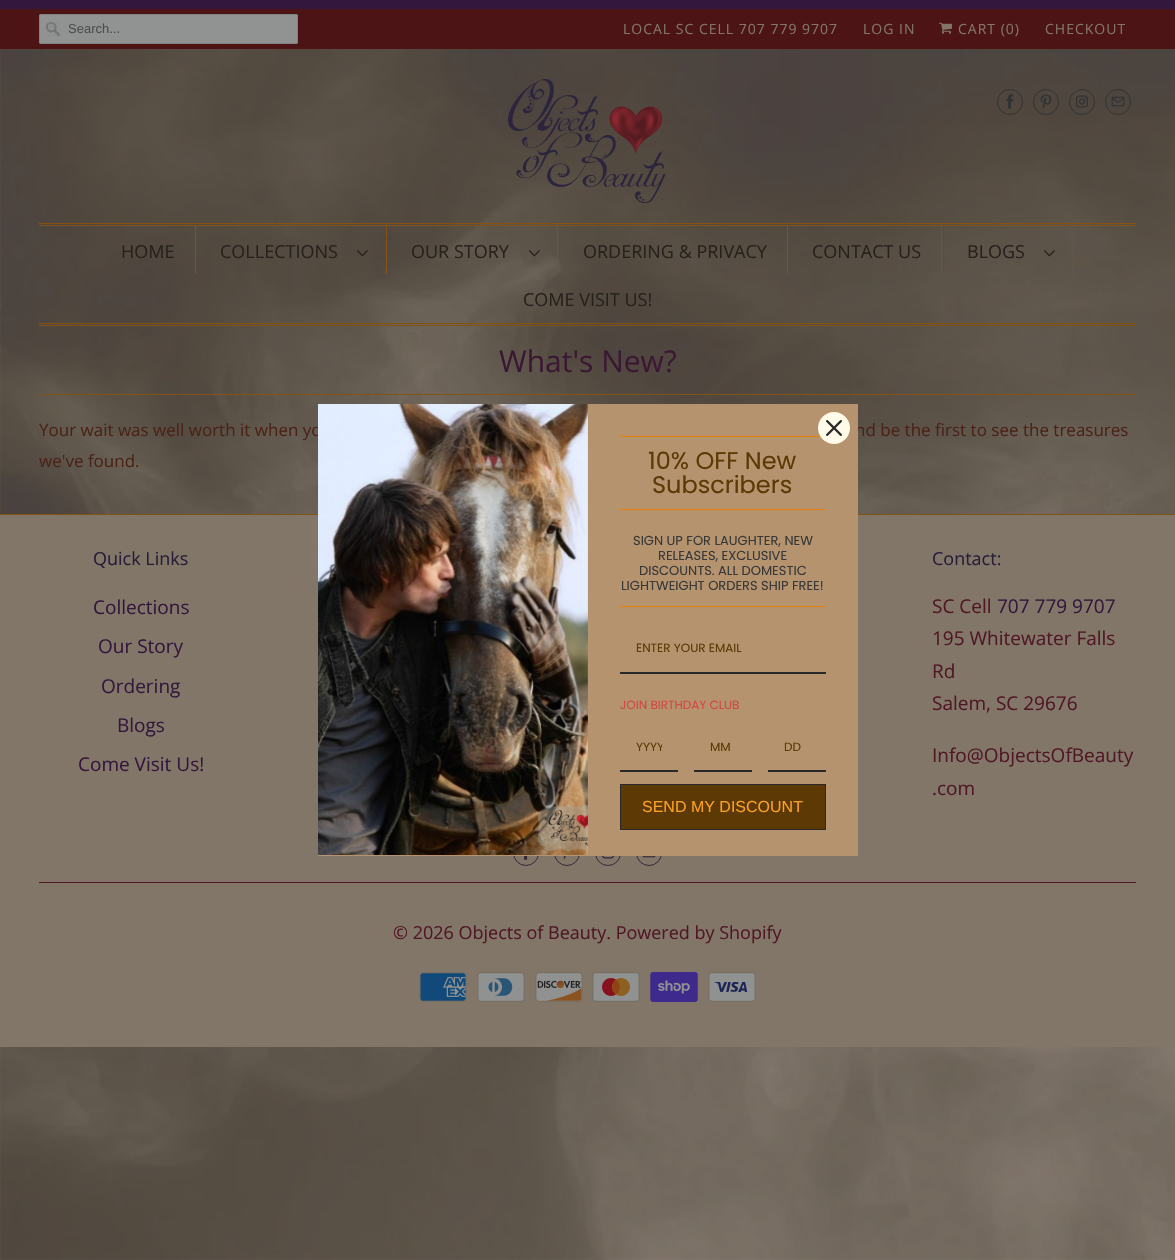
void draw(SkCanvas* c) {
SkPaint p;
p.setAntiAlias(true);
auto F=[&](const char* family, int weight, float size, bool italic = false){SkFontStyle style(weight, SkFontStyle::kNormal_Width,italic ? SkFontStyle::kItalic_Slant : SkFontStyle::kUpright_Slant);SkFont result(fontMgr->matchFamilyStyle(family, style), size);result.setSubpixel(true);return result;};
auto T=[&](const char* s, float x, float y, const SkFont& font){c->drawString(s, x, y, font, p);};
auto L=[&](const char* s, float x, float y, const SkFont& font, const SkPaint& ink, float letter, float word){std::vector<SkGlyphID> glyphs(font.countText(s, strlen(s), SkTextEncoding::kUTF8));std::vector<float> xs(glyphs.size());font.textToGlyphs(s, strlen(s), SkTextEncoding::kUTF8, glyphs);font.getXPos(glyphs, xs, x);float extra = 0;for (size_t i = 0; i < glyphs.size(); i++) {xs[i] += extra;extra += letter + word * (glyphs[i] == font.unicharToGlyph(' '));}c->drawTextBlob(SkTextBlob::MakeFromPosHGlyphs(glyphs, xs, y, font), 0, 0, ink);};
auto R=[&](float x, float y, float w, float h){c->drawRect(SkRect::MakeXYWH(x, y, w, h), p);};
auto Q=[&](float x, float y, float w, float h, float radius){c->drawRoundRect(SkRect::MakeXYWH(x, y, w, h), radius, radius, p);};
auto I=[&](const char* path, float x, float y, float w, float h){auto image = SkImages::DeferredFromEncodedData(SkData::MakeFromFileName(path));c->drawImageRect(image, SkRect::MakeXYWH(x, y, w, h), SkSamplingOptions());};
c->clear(0xffffffff);
I("1.png",0,49,1175,1211);
p.setColor(0xff34173c);
R(0,0,1175,9);
p.setColor(0xff4c1414);
R(0,9,1175,40);
p.setColor(0xff919292);
Q(39,14,259,30,2);
I("2.png",46,22,14,14);
p.setStroke(true);
p.setStrokeWidth(1);
p.setColor(0xff818282);
c->drawRoundRect(SkRect::MakeXYWH(39.5,14.5,258,29),1.5,1.5,p);
auto f1 = F("Liberation Sans",400,13);
p.setStroke(false);
p.setColor(0xff4c4d4d);
T("Search...",68,33,f1);
auto f2 = F("Open Sans",400,14);
p.setColor(0xff827669);
L("LOCAL SC CELL 707 779 9707",623,34,f2,p,1,0);
L("LOG IN",863,34,f2,p,1,0);
I("3.png",939,22,13,12);
L("CART (0)",958,34,f2,p,1,0);
L("CHECKOUT",1045,34,f2,p,1,0);
I("4.png",508,79,158,124);
p.setStroke(true);
p.setColor(0xff313232);
c->drawCircle(1010,102,12.5,p);
I("5.png",1006,94,8,15);
c->drawCircle(1046,102,12.5,p);
I("6.png",1040,94,12,15);
c->drawCircle(1082,102,12.5,p);
I("7.png",1076,95,12,13);
c->drawCircle(1118,102,12.5,p);
I("8.png",1111,96,14,11);
p.setStroke(false);
p.setColor(0xff855216);
R(39,223,1097,1);
R(39,225,1097,1);
R(39,323,1097,1);
R(39,325,1097,1);
R(195,226,1,48);
auto f3 = F("Open Sans",400,18);
p.setColor(0xff26211b);
T("HOME",121,258,f3);
p.setColor(0xff855216);
R(386,226,1,48);
p.setColor(0xff26211b);
T("COLLECTIONS",220,258,f3);
I("9.png",357,250,11,7);
p.setColor(0xff855216);
R(557,226,1,48);
p.setColor(0xff26211b);
T("OUR STORY",411,258,f3);
I("10.png",529,250,11,7);
p.setColor(0xff855216);
R(787,226,1,48);
p.setColor(0xff26211b);
T("ORDERING & PRIVACY",583,258,f3);
p.setColor(0xff855216);
R(941,226,1,48);
p.setColor(0xff26211b);
T("CONTACT US",812,258,f3);
p.setColor(0xff855216);
R(1073,226,1,48);
p.setColor(0xff26211b);
T("BLOGS",967,258,f3);
I("11.png",1044,250,11,7);
T("COME VISIT US!",523,306,f3);
p.setColor(0xff855216);
R(39,394,1097,1);
auto f4 = F("Open Sans",400,30);
p.setColor(0xff3b1734);
T("What's New?",499,372,f4);
auto f5 = F("Open Sans",400,17);
p.setColor(0xff4b2218);
T("Your wait was well worth it when yo",39,436,f5);
T("nd be the first to see the treasures",855,436,f5);
T("we've found.",39,467,f5);
p.setColor(0xff827669);
R(0,515,1175,532);
p.setColor(0xff855216);
R(0,514,1175,1);
p.setStroke(true);
p.setColor(0xff352737);
c->drawCircle(526,853,12.5,p);
c->drawCircle(567,853,12.5,p);
c->drawCircle(608,853,12.5,p);
c->drawCircle(649,853,12.5,p);
p.setStroke(false);
p.setColor(0xffb5936e);
R(318,404,540,452);
p.setColor(0xffe87f08);
R(620,436,206,1);
p.setColor(0xfffffbe8);
c->drawCircle(834,428,16,p);
I("12.png",826,420,16,16);
I("13.png",318,404,270,451);
p.setColor(0xffe87f08);
R(620,509,206,1);
auto f6 = F("Poppins",400,24);
p.setColor(0xff5d3906);
T("10% OFF New",648,469,f6);
T("Subscribers",652,493,f6);
p.setColor(0xffe87f08);
R(620,606,206,1);
auto f7 = F("Poppins",400,13);
p.setColor(0xff383838);
T("SIGN UP FOR LAUGHTER, NEW",633,545,f7);
T("RELEASES, EXCLUSIVE",658,560,f7);
T("DISCOUNTS. ALL DOMESTIC",639,575,f7);
T("LIGHTWEIGHT ORDERS SHIP FREE!",621,590,f7);
p.setColor(0xff292929);
R(620,672,206,2);
auto f8 = F("Poppins",400,12);
p.setColor(0xff5d3906);
T("ENTER YOUR EMAIL",636,652,f8);
p.setColor(0xffd14841);
T("JOIN BIRTHDAY CLUB",620,709,f8);
p.setColor(0xff292929);
R(620,770,58,2);
c->save();
c->clipRect(SkRect::MakeXYWH(636,738,26,18));
p.setColor(0xff5d3906);
T("YYYY",636,751,f8);
c->restore();
p.setColor(0xff292929);
R(694,770,58,2);
p.setColor(0xff5d3906);
T("MM",710,751,f8);
p.setColor(0xff292929);
R(768,770,58,2);
p.setColor(0xff5d3906);
T("DD",784,751,f8);
c->drawRect(SkRect::MakeXYWH(620.5,784.5,205,45),p);
p.setStroke(true);
p.setColor(0xff292929);
c->drawRect(SkRect::MakeXYWH(620.5,784.5,205,45),p);
auto f9 = F("Liberation Sans",400,16);
p.setStroke(false);
p.setColor(0xfffba026);
T("SEND MY DISCOUNT",642,812,f9);
p.setColor(0xff271d38);
T("Quick Links",93,565,f3);
auto f10 = F("Open Sans",400,19);
p.setColor(0xff34173c);
T("Collections",93,614,f10);
T("Our Story",98,653,f10);
T("Ordering",101,693,f10);
T("Blogs",117,732,f10);
T("Come Visit Us!",78,771,f10);
p.setColor(0xff271d38);
T("Contact:",932,565,f3);
p.setColor(0xff501724);
T("SC Cell",932,613,f10);
p.setColor(0xff34173c);
T("707 779 9707",997,613,f10);
p.setColor(0xff501724);
T("195 Whitewater Falls",932,645,f10);
T("Rd",932,678,f10);
T("Salem, SC 29676",932,710,f10);
T("Info@ObjectsOfBeauty",932,762,f10);
T(".com",932,795,f10);
I("14.png",524,856,4,4);
I("15.png",563,856,3,4);
I("16.png",602,856,12,3);
I("17.png",642,856,14,2);
R(39,882,1097,1);
T("© 2026 Objects of Beauty. Powered by Shopify",393,939,f3);
I("18.png",419,972,48,30);
I("19.png",477,972,48,30);
I("20.png",535,972,48,30);
I("21.png",592,972,48,30);
I("22.png",650,972,48,30);
I("23.png",708,972,48,30);
}
